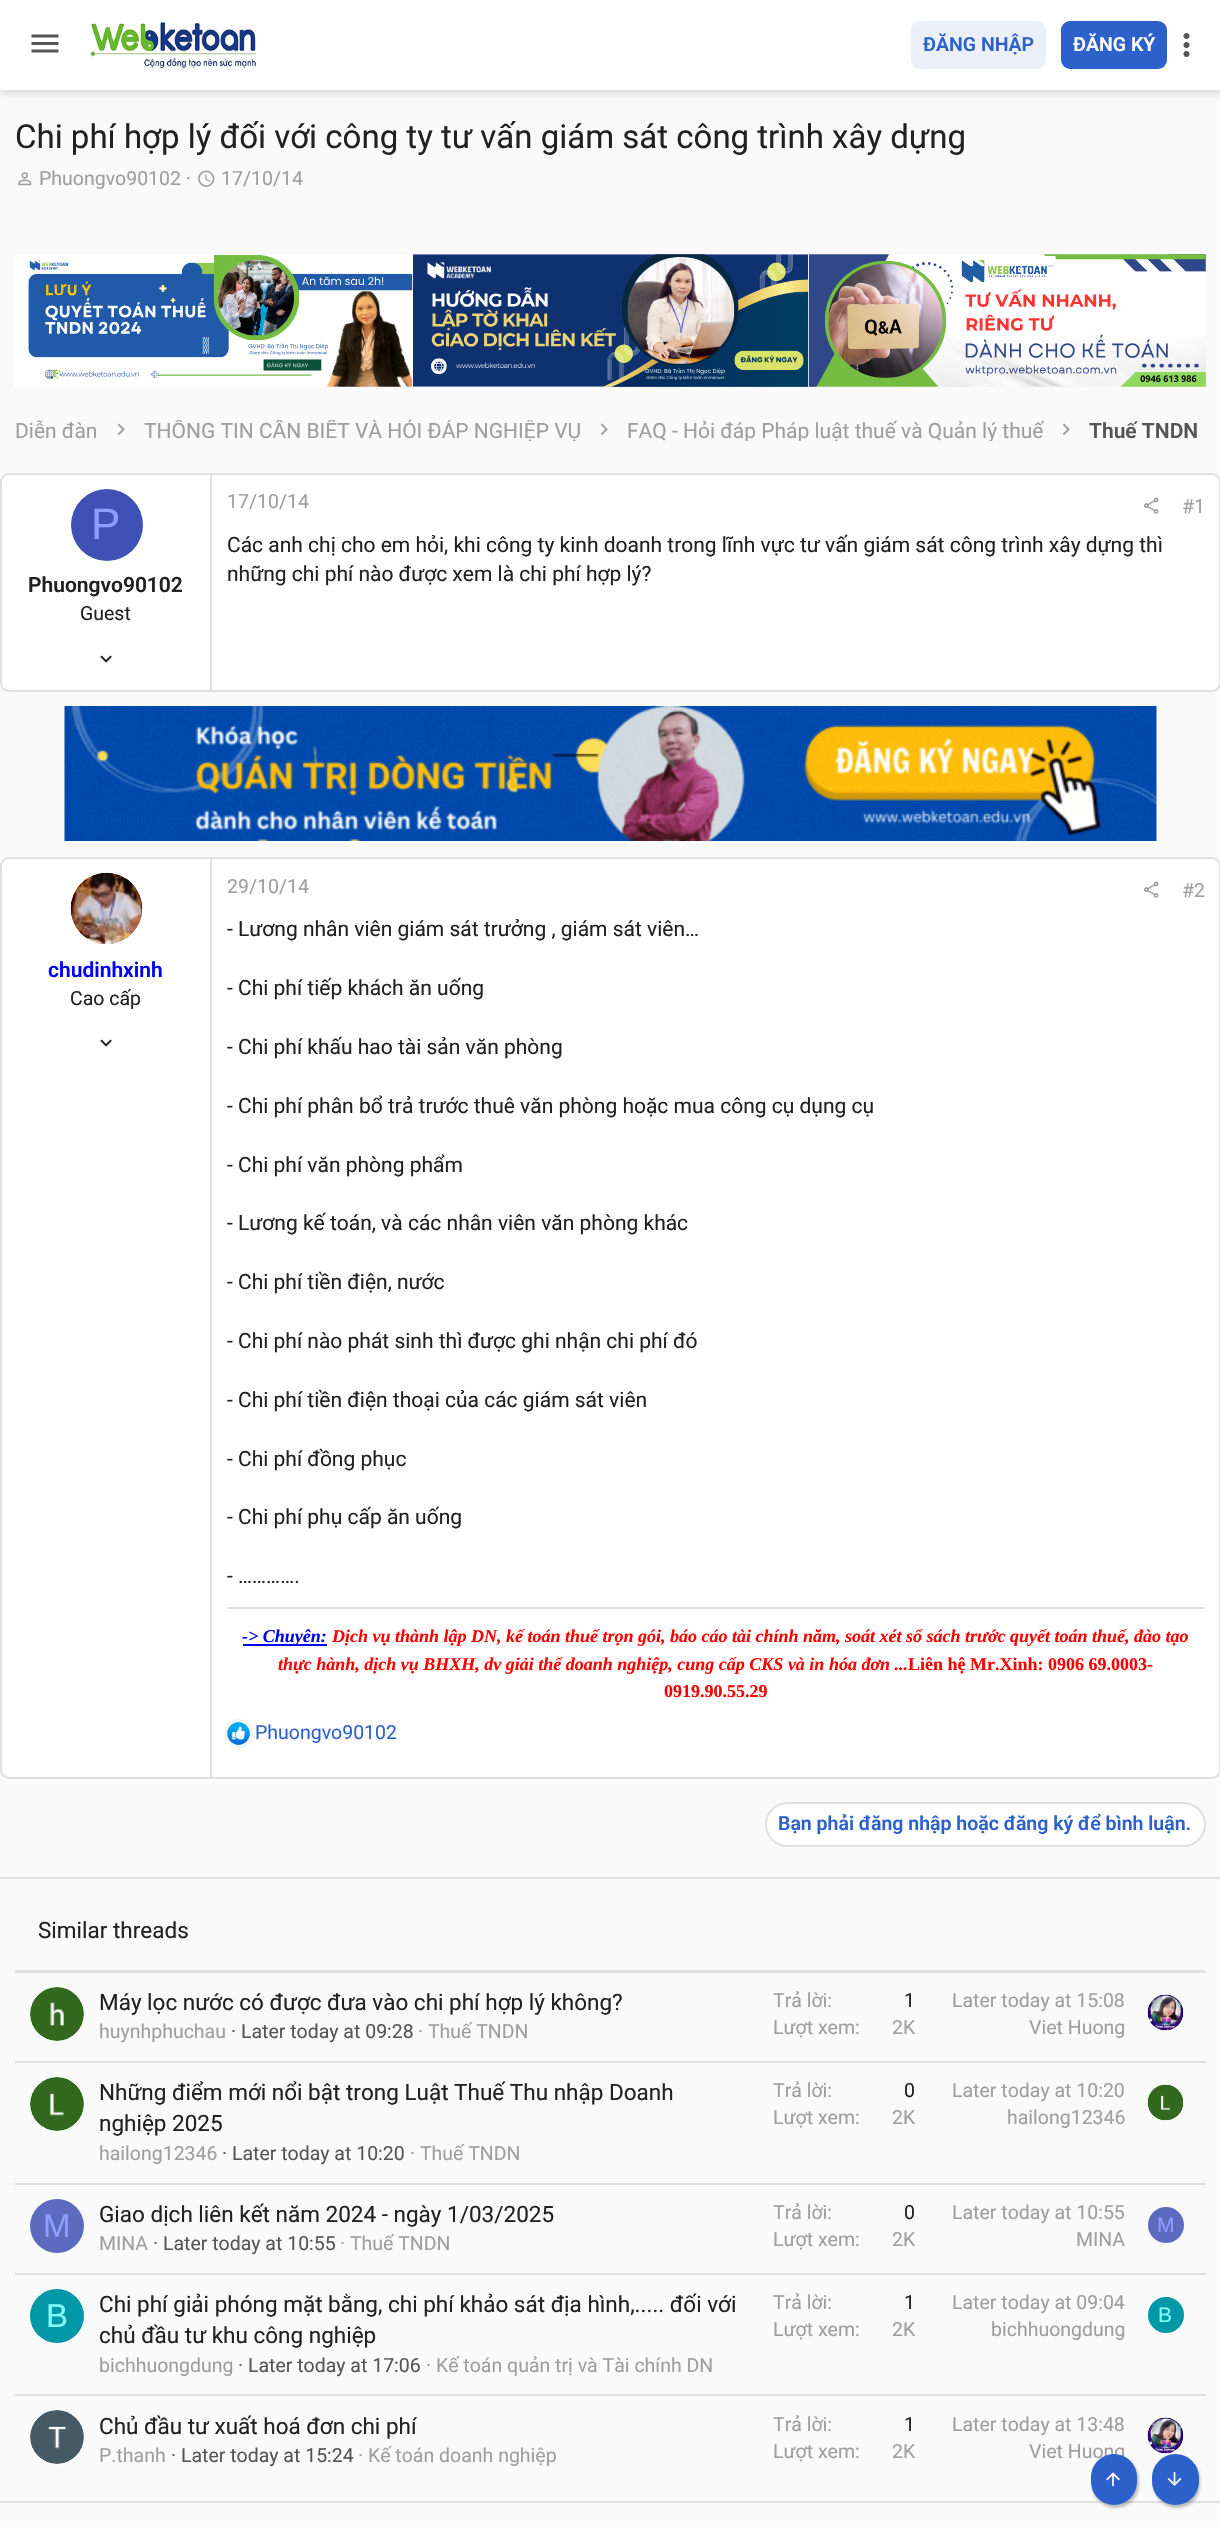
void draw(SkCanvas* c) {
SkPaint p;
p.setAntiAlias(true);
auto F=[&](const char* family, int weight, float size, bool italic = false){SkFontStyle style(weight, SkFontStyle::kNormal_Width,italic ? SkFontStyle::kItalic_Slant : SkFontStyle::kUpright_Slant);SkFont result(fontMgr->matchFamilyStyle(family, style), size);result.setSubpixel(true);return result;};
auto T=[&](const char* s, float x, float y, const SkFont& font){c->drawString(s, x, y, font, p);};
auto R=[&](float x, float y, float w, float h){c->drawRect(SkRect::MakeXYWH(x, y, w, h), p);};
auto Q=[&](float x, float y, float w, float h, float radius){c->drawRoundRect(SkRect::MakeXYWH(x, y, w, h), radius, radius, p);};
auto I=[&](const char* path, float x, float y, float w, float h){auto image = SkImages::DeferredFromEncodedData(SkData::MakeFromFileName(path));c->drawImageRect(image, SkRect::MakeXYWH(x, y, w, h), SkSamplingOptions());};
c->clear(0xfffafafa);
p.setColor(0x36424242);
p.setMaskFilter(SkMaskFilter::MakeBlur(kNormal_SkBlurStyle, 4));
c->drawRect(SkRect::MakeXYWH(0,3,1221,90),p);
p.setMaskFilter(nullptr);
p.setColor(0xffffffff);
R(0,0,1220,90);
I("1.png",31,34,28,19);
I("2.png",90,22,167,47);
p.setColor(0xffeaeffa);
Q(911,21,135,48,9);
auto f1 = F("Roboto",600,19.5);
p.setColor(0xff2c61cc);
T("ĐĂNG NHẬP",923,51,f1);
Q(1061,21,106,48,9);
p.setColor(0xffffffff);
T("ĐĂNG KÝ",1073,51,f1);
I("3.png",1183,33,7,24);
auto f2 = F("Roboto",400,33);
p.setColor(0xff212121);
T("Chi phí hợp lý đối với công ty tư vấn giám sát công trình xây dựng",15,148,f2);
I("4.png",18,172,14,14);
auto f3 = F("Roboto",400,19.5);
p.setColor(0xff9e9e9e);
T("Phuongvo90102 ·",39,185,f3);
I("5.png",198,170,17,17);
T("17/10/14",221,185,f3);
I("6.png",15,254,398,133);
I("7.png",413,254,396,133);
I("8.png",809,254,397,133);
auto f4 = F("Roboto",400,21);
T("Diễn đàn",15,438,f4);
I("9.png",117,423,8,12);
c->save();
c->clipRect(SkRect::MakeXYWH(144,420,437,21));
T("THÔNG TIN CẦN BIẾT VÀ HỎI ĐÁP NGHIỆP VỤ",144,438,f4);
c->restore();
I("9.png",600,423,8,12);
c->save();
c->clipRect(SkRect::MakeXYWH(627,420,417,21));
T("FAQ - Hỏi đáp Pháp luật thuế và Quản lý thuế",627,438,f4);
c->restore();
I("9.png",1062,423,8,12);
auto f5 = F("Roboto",600,21);
p.setColor(0xff555555);
T("Thuế TNDN",1089,438,f5);
p.setColor(0xffffffff);
c->drawRoundRect(SkRect::MakeXYWH(1,474,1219,217),8,8,p);
p.setStroke(true);
p.setStrokeWidth(2);
p.setColor(0xffe0e0e0);
c->drawRoundRect(SkRect::MakeXYWH(1,474,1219,217),8,8,p);
p.setStroke(false);
R(210,474,2,216);
p.setColor(0xff3f51b5);
c->drawCircle(107,525,36,p);
auto f6 = F("Liberation Sans",400,44);
p.setColor(0xff8c9eff);
T("P",91,539,f6);
p.setColor(0xff212121);
T("Phuongvo90102",28,592,f5);
T("Guest",80,620,f3);
I("10.png",100,655,12,8);
p.setColor(0xff9e9e9e);
T("17/10/14",227,508,f3);
I("11.png",1144,497,15,17);
T("#1",1182,513,f3);
p.setColor(0xff212121);
T("Các anh chị cho em hỏi, khi công ty kinh doanh trong lĩnh vực tư vấn giám sát công trình xây dựng thì",227,552,f4);
T("những chi phí nào được xem là chi phí hợp lý?",227,581,f4);
I("12.png",64,706,1093,135);
p.setColor(0xffffffff);
c->drawRoundRect(SkRect::MakeXYWH(1,858,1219,920),8,8,p);
p.setStroke(true);
p.setColor(0xffe0e0e0);
c->drawRoundRect(SkRect::MakeXYWH(1,858,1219,920),8,8,p);
p.setStroke(false);
R(210,858,2,920);
I("13.png",70,872,73,73);
p.setColor(0xff0000ff);
T("chudinhxinh",48,977,f5);
p.setColor(0xff212121);
T("Cao cấp",70,1005,f3);
I("10.png",100,1039,12,8);
p.setColor(0xff9e9e9e);
T("29/10/14",227,893,f3);
I("11.png",1144,881,15,17);
T("#2",1182,897,f3);
p.setColor(0xff212121);
T("- Lương nhân viên giám sát trưởng , giám sát viên…",227,936,f4);
T("- Chi phí tiếp khách ăn uống",227,995,f4);
T("- Chi phí khấu hao tài sản văn phòng",227,1054,f4);
T("- Chi phí phân bổ trả trước thuê văn phòng hoặc mua công cụ dụng cụ",227,1113,f4);
T("- Chi phí văn phòng phẩm",227,1172,f4);
T("- Lương kế toán, và các nhân viên văn phòng khác",227,1230,f4);
T("- Chi phí tiền điện, nước",227,1289,f4);
T("- Chi phí nào phát sinh thì được ghi nhận chi phí đó",227,1348,f4);
T("- Chi phí tiền điện thoại của các giám sát viên",227,1407,f4);
T("- Chi phí đồng phục",227,1466,f4);
T("- Chi phí phụ cấp ăn uống",227,1524,f4);
T("- ………….",227,1583,f4);
p.setColor(0xffe0e0e0);
R(227,1607,978,2);
p.setColor(0xff0000ff);
R(243,1644,84,2);
auto f7 = F("Liberation Serif",700,18,true);
T("-> Chuyên:",242,1642,f7);
p.setColor(0xffff0000);
T("Dịch vụ thành lập DN, kế toán thuế trọn gói, báo cáo tài chính năm, soát xét sổ sách trước quyết toán thuế, đào tạo",332,1642,f7);
T("thực hành, dịch vụ BHXH, dv giải thể doanh nghiệp, cung cấp CKS và in hóa đơn ...",278,1670,f7);
auto f8 = F("Liberation Serif",700,18);
T("Liên hệ Mr.Xinh: 0906 69.0003-",908,1670,f8);
T("0919.90.55.29",664,1697,f8);
p.setColor(0xfff5f5f5);
c->drawCircle(239,1734,15,p);
I("14.png",227,1722,23,23);
p.setColor(0xff2c61cc);
T("Phuongvo90102",255,1739,f3);
p.setColor(0xffffffff);
c->drawRoundRect(SkRect::MakeXYWH(766,1803,439,43),21.5,21.5,p);
p.setStroke(true);
p.setColor(0xffe0e0e0);
c->drawRoundRect(SkRect::MakeXYWH(766,1803,439,43),21.5,21.5,p);
p.setStroke(false);
p.setColor(0xff2c61cc);
T("Bạn phải đăng nhập hoặc đăng ký để bình luận.",778,1830,f1);
p.setColor(0xffe0e0e0);
R(0,1877,1220,2);
R(0,2501,1220,2);
R(15,1970,1191,3);
auto f9 = F("Roboto",400,22.5);
p.setColor(0xff212121);
T("Similar threads",38,1938,f9);
p.setColor(0xffffffff);
c->drawCircle(57,2015,27,p);
I("15.png",30,1987,54,54);
p.setColor(0xff212121);
T("Máy lọc nước có được đưa vào chi phí hợp lý không?",99,2010,f9);
p.setColor(0xff9e9e9e);
T("huynhphuchau",99,2038,f3);
p.setColor(0xff555555);
T("· Later today at 09:28",231,2038,f3);
p.setColor(0xff9e9e9e);
T("· Thuế TNDN",418,2038,f3);
T("Trả lời:",773,2007,f3);
p.setColor(0xff212121);
T("1",904,2007,f3);
p.setColor(0xff9e9e9e);
T("Lượt xem:",773,2034,f3);
T("2K",892,2034,f3);
T("Later today at 15:08",952,2007,f3);
T("Viet Huong",1029,2034,f3);
p.setColor(0xffffffff);
c->drawCircle(1166,2013,18,p);
I("16.png",1147,1994,37,37);
p.setColor(0xffe0e0e0);
R(15,2061,1191,2);
p.setColor(0xffffffff);
c->drawCircle(57,2105,27,p);
I("17.png",30,2077,54,54);
p.setColor(0xff212121);
T("Những điểm mới nổi bật trong Luật Thuế Thu nhập Doanh",99,2100,f9);
T("nghiệp 2025",99,2131,f9);
p.setColor(0xff9e9e9e);
T("hailong12346",99,2160,f3);
p.setColor(0xff555555);
T("· Later today at 10:20",222,2160,f3);
p.setColor(0xff9e9e9e);
T("· Thuế TNDN",410,2160,f3);
T("Trả lời:",773,2097,f3);
p.setColor(0xff212121);
T("0",904,2097,f3);
p.setColor(0xff9e9e9e);
T("Lượt xem:",773,2124,f3);
T("2K",892,2124,f3);
T("Later today at 10:20",952,2097,f3);
T("hailong12346",1007,2124,f3);
p.setColor(0xffffffff);
c->drawCircle(1166,2103,18,p);
I("18.png",1147,2084,37,37);
p.setColor(0xffe0e0e0);
R(15,2183,1191,2);
p.setColor(0xff5c6bc0);
c->drawCircle(57,2226,27,p);
auto f10 = F("Liberation Sans",400,33);
p.setColor(0xff8c9eff);
T("M",43,2237,f10);
p.setColor(0xff212121);
T("Giao dịch liên kết năm 2024 - ngày 1/03/2025",99,2222,f9);
p.setColor(0xff9e9e9e);
T("MINA",99,2250,f3);
p.setColor(0xff555555);
T("· Later today at 10:55",153,2250,f3);
p.setColor(0xff9e9e9e);
T("· Thuế TNDN",340,2250,f3);
T("Trả lời:",773,2219,f3);
p.setColor(0xff212121);
T("0",904,2219,f3);
p.setColor(0xff9e9e9e);
T("Lượt xem:",773,2246,f3);
T("2K",892,2246,f3);
T("Later today at 10:55",952,2219,f3);
T("MINA",1076,2246,f3);
p.setColor(0xff5c6bc0);
c->drawCircle(1166,2225,18,p);
auto f11 = F("Liberation Sans",400,21);
p.setColor(0xff8c9eff);
T("M",1157,2232,f11);
p.setColor(0xffe0e0e0);
R(15,2273,1191,2);
p.setColor(0xff0097a7);
c->drawCircle(57,2316,27,p);
p.setColor(0xff84ffff);
T("B",46,2327,f10);
p.setColor(0xff212121);
T("Chi phí giải phóng mặt bằng, chi phí khảo sát địa hình,..... đối với",99,2312,f9);
T("chủ đầu tư khu công nghiệp",99,2343,f9);
p.setColor(0xff9e9e9e);
T("bichhuongdung",99,2372,f3);
p.setColor(0xff555555);
T("· Later today at 17:06",238,2372,f3);
p.setColor(0xff9e9e9e);
T("· Kế toán quản trị và Tài chính DN",426,2372,f3);
T("Trả lời:",773,2309,f3);
p.setColor(0xff212121);
T("1",904,2309,f3);
p.setColor(0xff9e9e9e);
T("Lượt xem:",773,2336,f3);
T("2K",892,2336,f3);
T("Later today at 09:04",952,2309,f3);
T("bichhuongdung",991,2336,f3);
p.setColor(0xff0097a7);
c->drawCircle(1166,2315,18,p);
p.setColor(0xff84ffff);
T("B",1158,2322,f11);
p.setColor(0xffe0e0e0);
R(15,2394,1191,2);
p.setColor(0xffffffff);
c->drawCircle(57,2438,27,p);
I("19.png",30,2410,54,54);
p.setColor(0xff212121);
T("Chủ đầu tư xuất hoá đơn chi phí",99,2434,f9);
p.setColor(0xff9e9e9e);
T("P.thanh",99,2462,f3);
p.setColor(0xff555555);
T("· Later today at 15:24",171,2462,f3);
p.setColor(0xff9e9e9e);
T("· Kế toán doanh nghiệp",358,2462,f3);
T("Trả lời:",773,2431,f3);
p.setColor(0xff212121);
T("1",904,2431,f3);
p.setColor(0xff9e9e9e);
T("Lượt xem:",773,2458,f3);
T("2K",892,2458,f3);
T("Later today at 13:48",952,2431,f3);
T("Viet Huong",1029,2458,f3);
p.setColor(0xffffffff);
c->drawCircle(1166,2436,18,p);
I("16.png",1147,2417,37,37);
p.setColor(0x40000000);
p.setMaskFilter(SkMaskFilter::MakeBlur(kNormal_SkBlurStyle, 1.5));
c->drawRoundRect(SkRect::MakeXYWH(1092,2457,47,51),23.5,23.5,p);
p.setMaskFilter(nullptr);
p.setColor(0xff2c61cc);
Q(1091,2454,46,51,23);
I("20.png",1106,2472,14,15);
p.setColor(0x40000000);
p.setMaskFilter(SkMaskFilter::MakeBlur(kNormal_SkBlurStyle, 1.5));
c->drawRoundRect(SkRect::MakeXYWH(1154,2457,46,51),23,23,p);
p.setMaskFilter(nullptr);
p.setColor(0xff2c61cc);
Q(1152,2454,47,51,23.5);
I("21.png",1167,2472,15,14);
}
